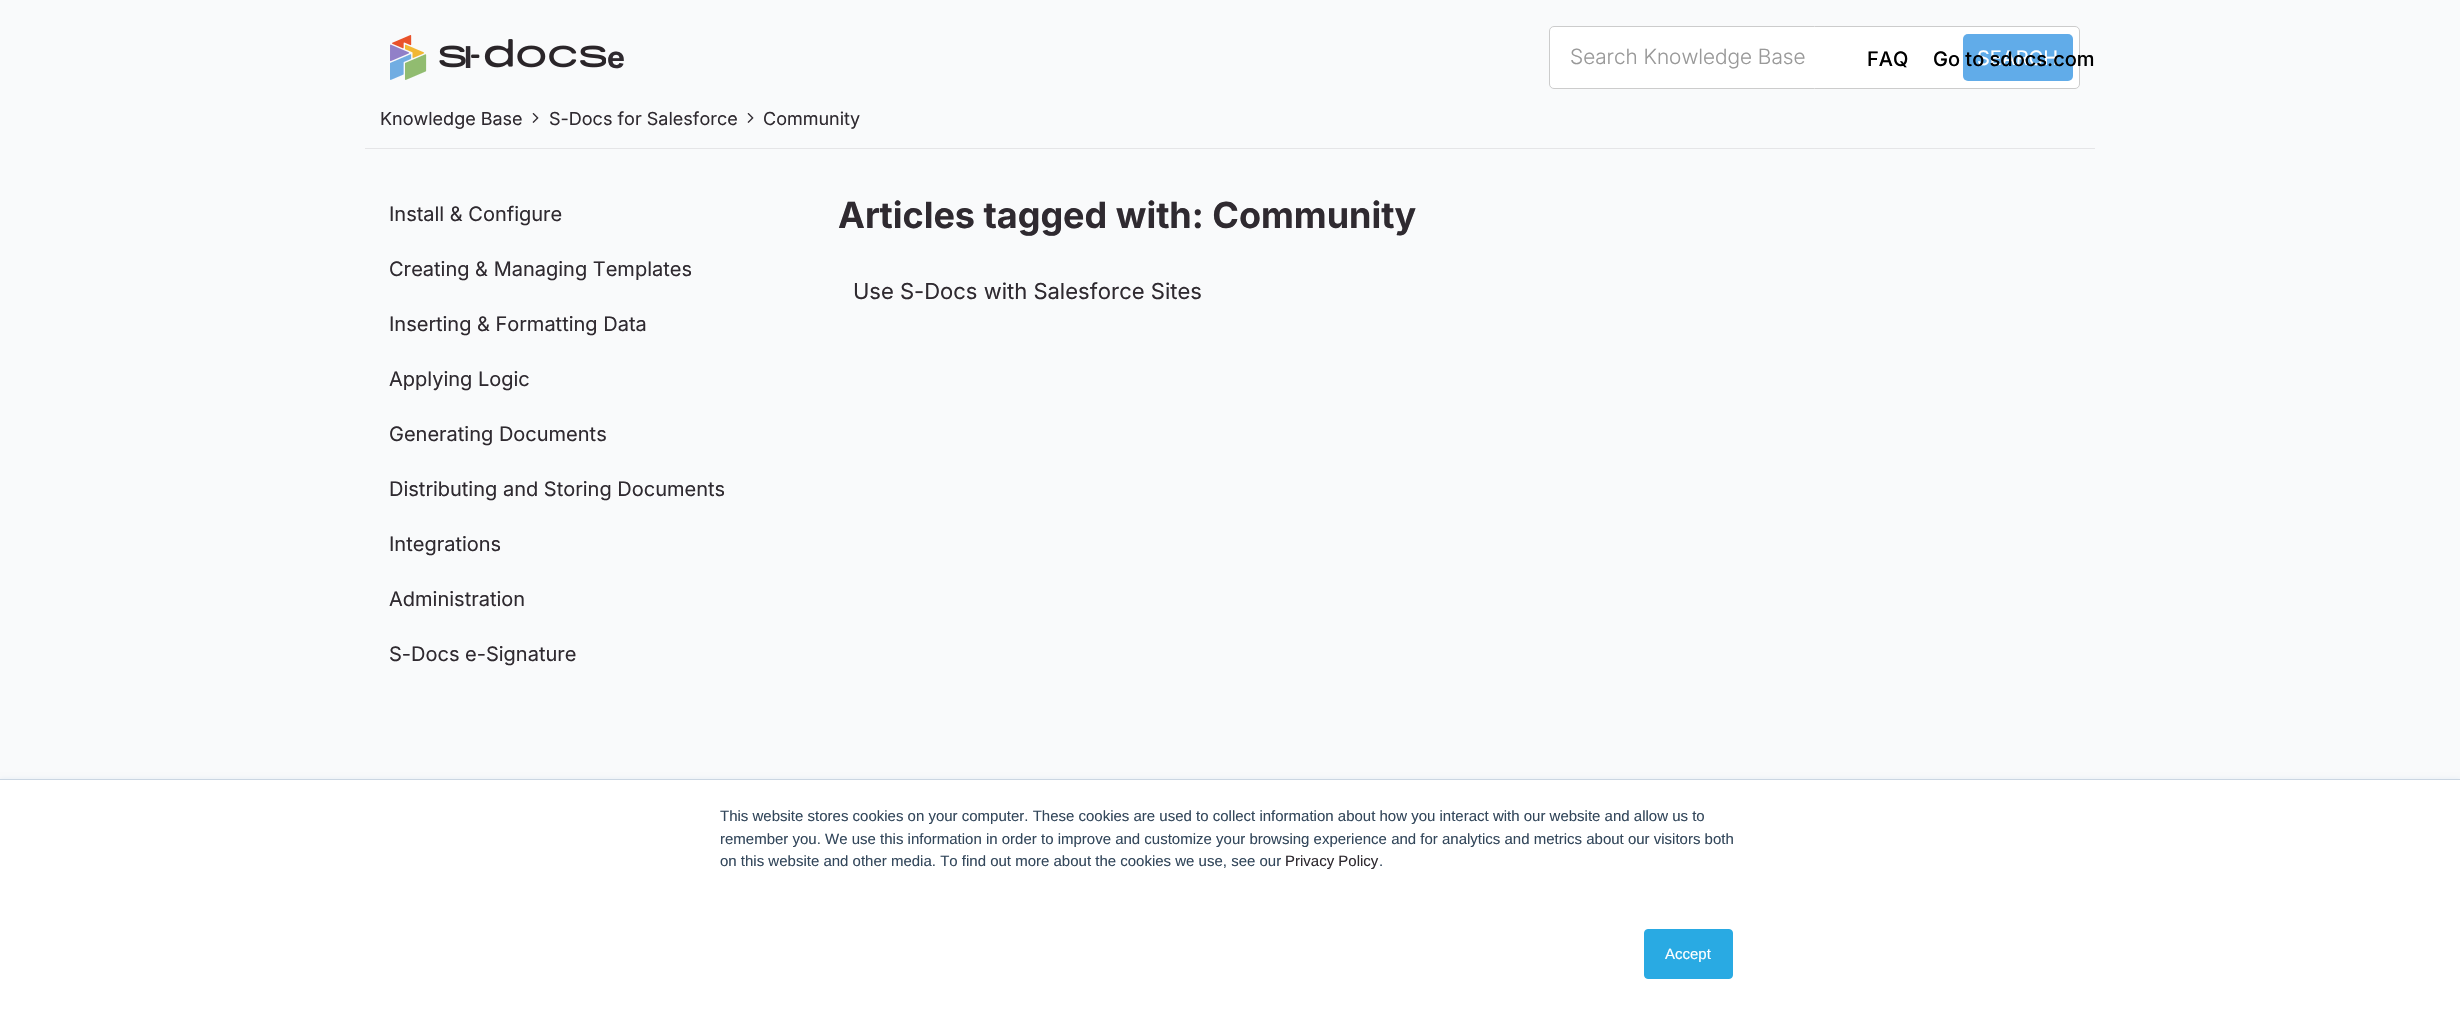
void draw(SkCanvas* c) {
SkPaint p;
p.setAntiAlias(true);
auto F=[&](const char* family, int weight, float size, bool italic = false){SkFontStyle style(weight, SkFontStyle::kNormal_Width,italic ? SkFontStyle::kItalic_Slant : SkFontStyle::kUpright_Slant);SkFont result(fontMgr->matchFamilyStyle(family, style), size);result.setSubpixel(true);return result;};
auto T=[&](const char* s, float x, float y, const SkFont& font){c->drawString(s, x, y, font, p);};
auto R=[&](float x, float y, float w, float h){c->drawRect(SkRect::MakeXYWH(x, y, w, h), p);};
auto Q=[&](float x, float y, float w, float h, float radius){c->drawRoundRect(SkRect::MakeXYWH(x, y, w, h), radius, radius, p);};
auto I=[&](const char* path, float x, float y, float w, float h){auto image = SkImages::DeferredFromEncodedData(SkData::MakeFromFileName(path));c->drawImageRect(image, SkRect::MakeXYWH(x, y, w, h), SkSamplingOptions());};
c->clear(0xfff9fafb);
auto f1 = F("Inter",700,30);
p.setColor(0xff2f2a30);
T("l",464,68,f1);
T("e",607,68,f1);
p.setColor(0xffffffff);
c->drawRoundRect(SkRect::MakeXYWH(1549.5,26.5,530,62),4.5,4.5,p);
p.setStroke(true);
p.setStrokeWidth(1);
p.setColor(0xffcccccc);
c->drawRoundRect(SkRect::MakeXYWH(1549.5,26.5,530,62),4.5,4.5,p);
auto f2 = F("Inter",300,21);
p.setStroke(false);
p.setColor(0xff999999);
T("Search Knowledge Base",1570,64,f2);
p.setColor(0xff61ace9);
Q(1963,34,110,47,5);
auto f3 = F("Inter",400,20);
p.setColor(0xffffffff);
T("SEARCH",1977,65,f3);
p.setColor(0xffe5e5e7);
R(365,148,1730,1);
auto f4 = F("Inter",400,18);
p.setColor(0xff2f2a30);
T("Knowledge Base",380,125,f4);
I("1.png",532,113,7,10);
T("S-Docs for Salesforce",549,125,f4);
I("1.png",747,113,7,10);
T("Community",763,125,f4);
T("Install & Configure",389,221,f3);
T("Creating & Managing Templates",389,276,f3);
T("Inserting & Formatting Data",389,331,f3);
T("Applying Logic",389,386,f3);
T("Generating Documents",389,441,f3);
T("Distributing and Storing Documents",389,496,f3);
T("Integrations",389,551,f3);
T("Administration",389,606,f3);
T("S-Docs e-Signature",389,661,f3);
auto f5 = F("Inter",700,36);
T("Articles tagged with: Community",838,228,f5);
auto f6 = F("Inter",400,22);
T("Use S-Docs with Salesforce Sites",853,299,f6);
I("2.png",390,35,216,45);
auto f7 = F("Inter",500,20);
p.setColor(0xff000000);
T("FAQ",1867,66,f7);
T("Go to sdocs.com",1933,66,f7);
p.setColor(0xffeaf0f6);
p.setMaskFilter(SkMaskFilter::MakeBlur(kNormal_SkBlurStyle, 2));
c->drawRect(SkRect::MakeXYWH(0,778,2460,232),p);
p.setMaskFilter(nullptr);
p.setColor(0xffffffff);
R(0,780,2460,231);
p.setColor(0xffcbd6e2);
R(0,779,2460,1);
auto f8 = F("Liberation Sans",400,15);
p.setColor(0xff33475b);
T("This website stores cookies on your computer. These cookies are used to collect information about how you interact with our website and allow us to",720,821,f8);
T("remember you. We use this information in order to improve and customize your browsing experience and for analytics and metrics about our visitors both",720,844,f8);
T("on this website and other media. To find out more about the cookies we use, see our",720,866,f8);
p.setColor(0xff2f2a30);
T("Privacy Policy",1285,866,f8);
p.setColor(0xff33475b);
T(".",1379,866,f8);
p.setColor(0xff29aae3);
c->drawRoundRect(SkRect::MakeXYWH(1644.5,929.5,88,49),3.5,3.5,p);
p.setStroke(true);
c->drawRoundRect(SkRect::MakeXYWH(1644.5,929.5,88,49),3.5,3.5,p);
p.setStroke(false);
p.setColor(0xffffffff);
T("Accept",1665,959,f8);
}
